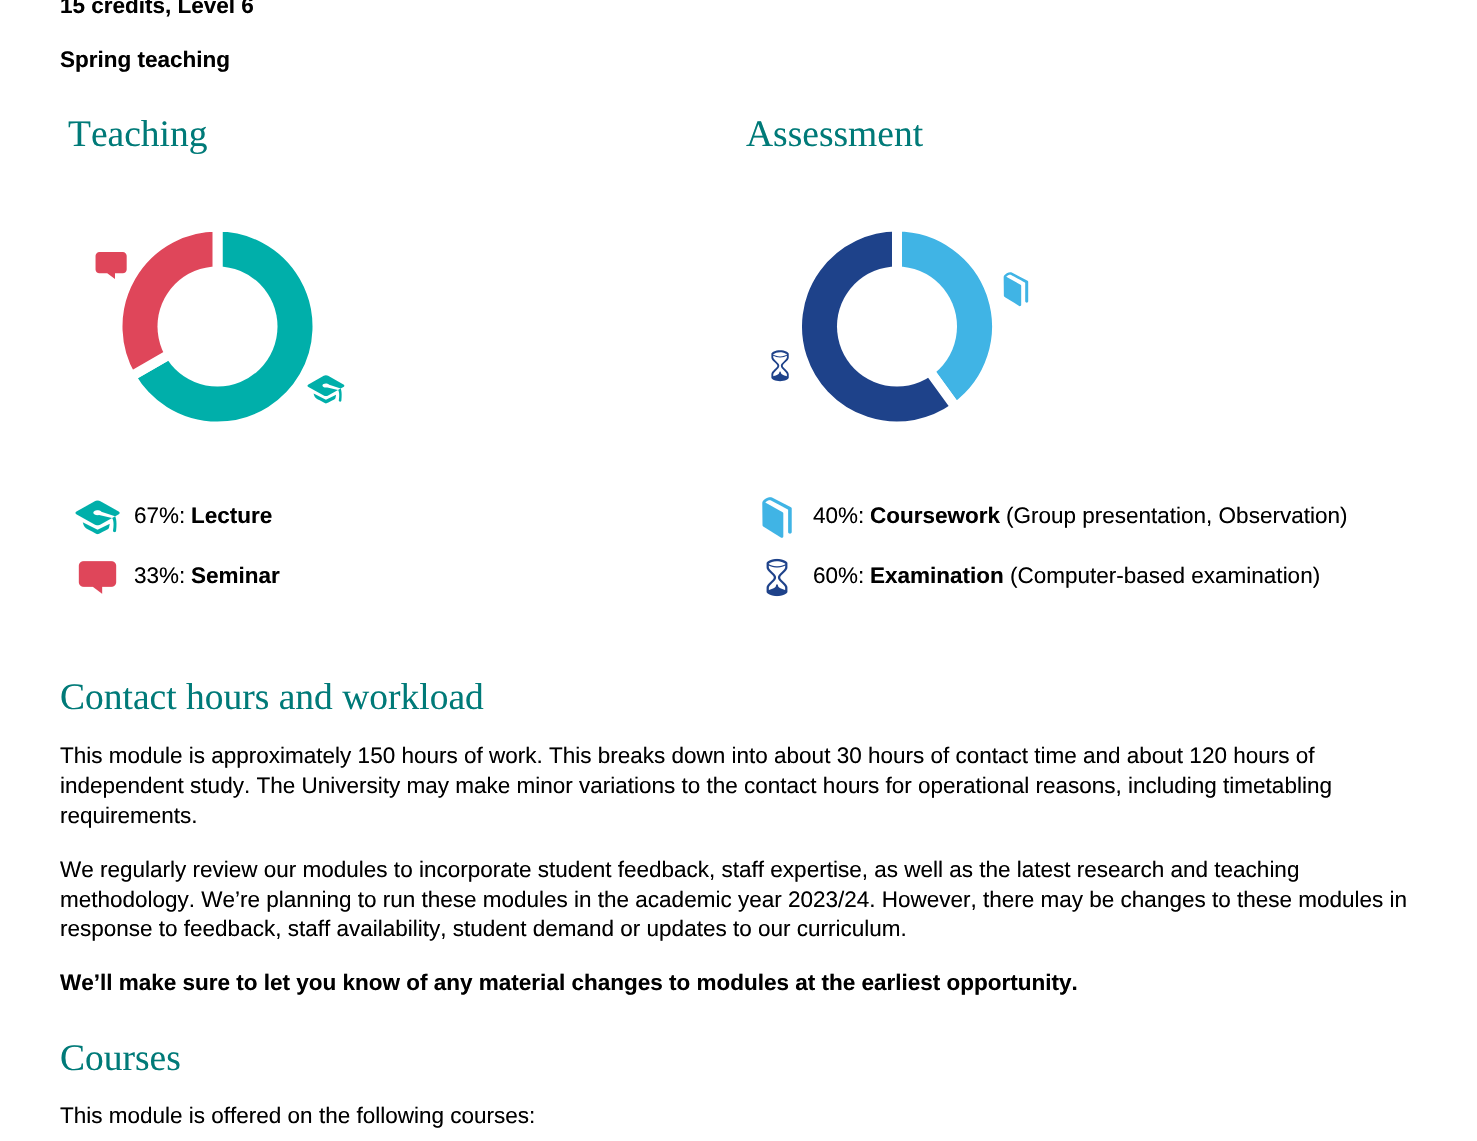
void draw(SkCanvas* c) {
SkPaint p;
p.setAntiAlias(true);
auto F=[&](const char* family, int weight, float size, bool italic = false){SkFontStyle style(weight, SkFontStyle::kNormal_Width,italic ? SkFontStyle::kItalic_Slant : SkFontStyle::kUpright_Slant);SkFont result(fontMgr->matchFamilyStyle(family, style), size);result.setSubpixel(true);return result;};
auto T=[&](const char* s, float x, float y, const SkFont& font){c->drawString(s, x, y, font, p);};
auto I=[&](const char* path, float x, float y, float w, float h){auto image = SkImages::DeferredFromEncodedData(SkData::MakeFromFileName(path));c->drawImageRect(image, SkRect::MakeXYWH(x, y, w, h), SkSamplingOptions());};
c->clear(0xffffffff);
auto f1 = F("Liberation Sans",700,22.5);
p.setColor(0xff000000);
T("15 credits, Level 6",60,13,f1);
T("Spring teaching",60,67,f1);
auto f2 = F("Liberation Serif",400,37.5);
p.setColor(0xff007a78);
T("Teaching",68,146,f2);
I("1.png",95,232,250,190);
I("2.png",75,500,45,35);
auto f3 = F("Liberation Sans",400,22.5);
p.setColor(0xff000000);
T("67%:",134,523,f3);
T("Lecture",191,523,f1);
I("3.png",78,561,39,33);
T("33%:",134,583,f3);
T("Seminar",191,583,f1);
p.setColor(0xff007a78);
T("Assessment",746,146,f2);
I("4.png",771,231,258,191);
I("5.png",762,497,30,41);
p.setColor(0xff000000);
T("40%:",813,523,f3);
T("Coursework",870,523,f1);
T("(Group presentation, Observation)",1006,523,f3);
I("6.png",766,558,22,39);
T("60%:",813,583,f3);
T("Examination",870,583,f1);
T("(Computer-based examination)",1010,583,f3);
p.setColor(0xff007a78);
T("Contact hours and workload",60,709,f2);
p.setColor(0xff000000);
T("This module is approximately 150 hours of work. This breaks down into about 30 hours of contact time and about 120 hours of",60,763,f3);
T("independent study. The University may make minor variations to the contact hours for operational reasons, including timetabling",60,793,f3);
T("requirements.",60,823,f3);
T("We regularly review our modules to incorporate student feedback, staff expertise, as well as the latest research and teaching",60,877,f3);
T("methodology. We’re planning to run these modules in the academic year 2023/24. However, there may be changes to these modules in",60,907,f3);
T("response to feedback, staff availability, student demand or updates to our curriculum.",60,936,f3);
T("We’ll make sure to let you know of any material changes to modules at the earliest opportunity.",60,990,f1);
p.setColor(0xff007a78);
T("Courses",60,1070,f2);
p.setColor(0xff000000);
T("This module is offered on the following courses:",60,1123,f3);
}
